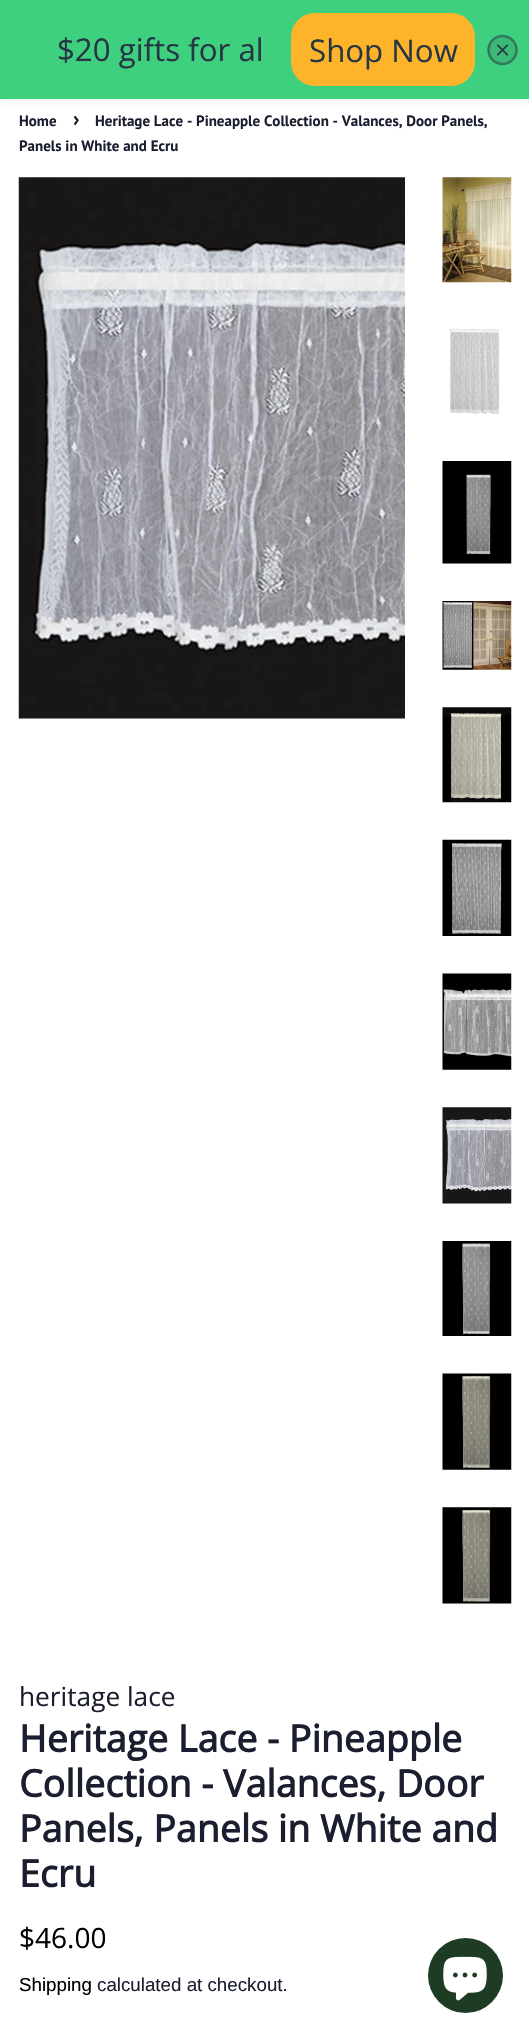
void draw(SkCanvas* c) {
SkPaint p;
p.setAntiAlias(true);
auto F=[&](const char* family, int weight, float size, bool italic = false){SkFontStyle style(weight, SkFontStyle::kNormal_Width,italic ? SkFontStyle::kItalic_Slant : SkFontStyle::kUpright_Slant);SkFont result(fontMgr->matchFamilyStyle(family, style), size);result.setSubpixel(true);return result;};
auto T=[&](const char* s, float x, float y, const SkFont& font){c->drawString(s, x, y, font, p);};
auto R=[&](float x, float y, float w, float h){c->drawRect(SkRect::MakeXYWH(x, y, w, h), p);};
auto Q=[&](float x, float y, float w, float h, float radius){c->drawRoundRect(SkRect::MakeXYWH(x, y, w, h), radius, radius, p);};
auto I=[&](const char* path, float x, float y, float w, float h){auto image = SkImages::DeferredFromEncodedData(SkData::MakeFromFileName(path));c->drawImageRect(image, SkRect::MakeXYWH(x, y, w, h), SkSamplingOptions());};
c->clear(0xffffffff);
p.setColor(0x1a212b36);
p.setMaskFilter(SkMaskFilter::MakeBlur(kNormal_SkBlurStyle, 6));
c->drawRect(SkRect::MakeXYWH(0,0,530,99),p);
p.setMaskFilter(nullptr);
p.setColor(0xff3ed07e);
R(0,0,529,99);
auto f1 = F("Open Sans",400,31.25);
p.setColor(0xff263644);
T("$20 gifts for al",57,61,f1);
p.setColor(0xfffdb42a);
Q(291,13,184,73,24);
p.setColor(0xff263644);
T("Shop Now",309,62,f1);
I("1.png",487,34,31,32);
auto f2 = F("PT Sans",700,15);
p.setColor(0xff1b1e2f);
T("Home",19,126,f2);
auto f3 = F("PT Sans",700,21);
T("›",73,126,f3);
T("Heritage Lace - Pineapple Collection - Valances, Door Panels,",95,126,f2);
T("Panels in White and Ecru",19,151,f2);
I("2.png",18,177,387,542);
I("3.png",442,177,70,106);
I("4.png",449,328,51,86);
I("5.png",442,461,70,103);
I("6.png",442,601,70,69);
I("7.png",442,707,70,96);
I("8.png",442,839,70,97);
I("9.png",442,973,70,97);
I("10.png",442,1107,70,97);
I("11.png",442,1241,70,95);
I("12.png",442,1373,70,97);
I("13.png",442,1507,70,97);
auto f4 = F("Open Sans",400,26.25);
T("heritage lace",19,1706,f4);
auto f5 = F("Open Sans",700,37.5);
T("Heritage Lace - Pineapple",19,1752,f5);
T("Collection - Valances, Door",19,1797,f5);
T("Panels, Panels in White and",19,1842,f5);
T("Ecru",19,1887,f5);
auto f6 = F("Open Sans",400,28);
p.setColor(0xff000000);
T("$46.00",19,1948,f6);
auto f7 = F("Liberation Sans",400,18.75);
T("Shipping",19,1991,f7);
p.setColor(0xff1b1e2f);
T("calculated at checkout.",97,1991,f7);
p.setColor(0xff1d3c23);
c->drawCircle(465.5,1975.5,37.5,p);
I("14.png",443,1956,44,45);
}
